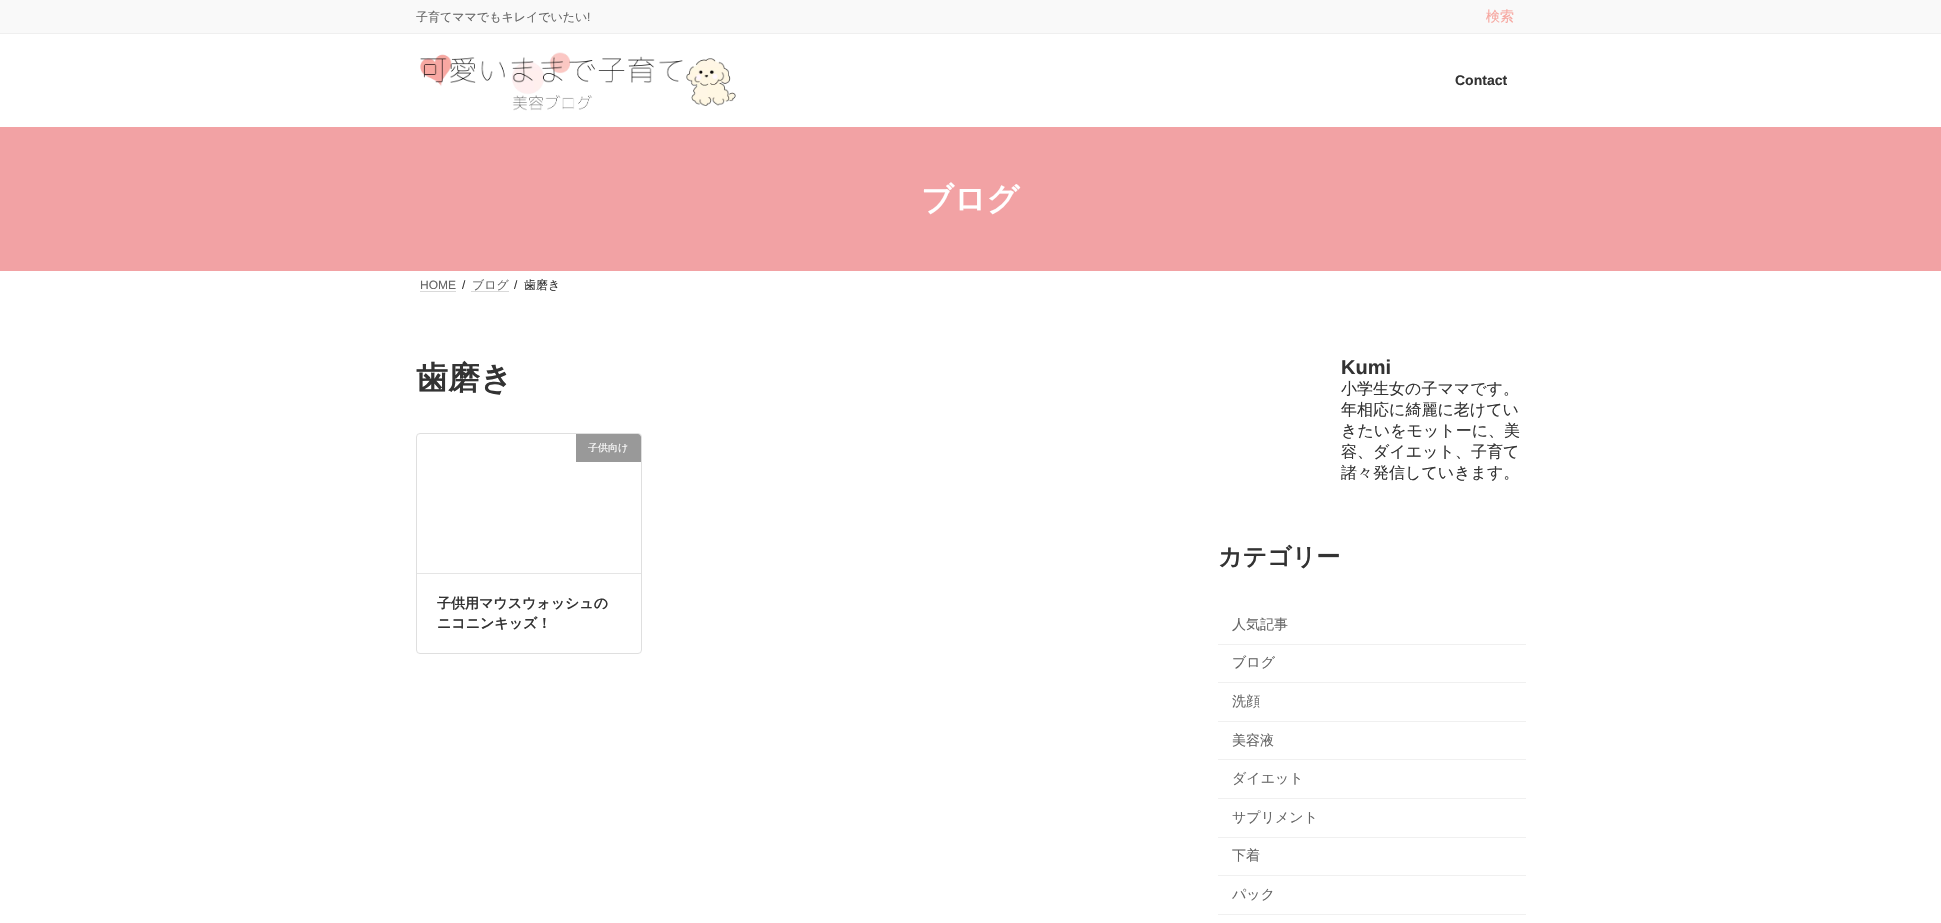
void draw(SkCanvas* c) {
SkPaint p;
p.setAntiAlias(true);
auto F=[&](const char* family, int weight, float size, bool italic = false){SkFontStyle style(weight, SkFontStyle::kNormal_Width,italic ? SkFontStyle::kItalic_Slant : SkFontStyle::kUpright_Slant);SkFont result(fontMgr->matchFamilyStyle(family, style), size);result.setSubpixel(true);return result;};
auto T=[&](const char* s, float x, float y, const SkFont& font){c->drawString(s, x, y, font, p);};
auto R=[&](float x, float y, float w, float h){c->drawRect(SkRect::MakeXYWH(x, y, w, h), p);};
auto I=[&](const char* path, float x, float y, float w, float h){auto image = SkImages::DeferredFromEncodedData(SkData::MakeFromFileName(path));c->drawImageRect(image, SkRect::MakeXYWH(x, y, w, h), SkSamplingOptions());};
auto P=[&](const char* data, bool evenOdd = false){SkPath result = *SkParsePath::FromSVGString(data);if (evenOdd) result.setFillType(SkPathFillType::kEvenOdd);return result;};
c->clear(0xffffffff);
p.setColor(0xfff9f9f9);
R(0,0,1941,33);
p.setColor(0xffefefef);
R(0,33,1941,1);
auto f1 = F("WenQuanYi Zen Hei",500,12);
p.setColor(0xff666666);
T("子育てママでもキレイでいたい",416,21,f1);
auto f2 = F("Liberation Sans",400,12);
T("!",587,21,f2);
auto f3 = F("WenQuanYi Zen Hei",500,14);
p.setColor(0xfff7a7a0);
T("検索",1486,21,f3);
I("1.png",420,52,316,59);
auto f4 = F("Liberation Sans",700,14);
p.setColor(0xff333333);
T("Contact",1455,85,f4);
p.setColor(0xfff2a2a4);
R(0,127,1941,144);
auto f5 = F("WenQuanYi Zen Hei",700,32);
p.setColor(0xffffffff);
T("ブログ",921,210,f5);
p.setColor(0xff666666);
T("HOME",420,289,f2);
p.setStroke(true);
p.setStrokeWidth(1);
p.setColor(0xffb3b3b3);
p.setPathEffect(SkDashPathEffect::Make({{1,1}}, 0));
c->drawPath(P("M420.5 291.5h36"),p);
p.setPathEffect(nullptr);
p.setStroke(false);
p.setColor(0xff333333);
T("/",462,289,f2);
p.setColor(0xff666666);
T("ブログ",472,289,f1);
p.setStroke(true);
p.setColor(0xffb3b3b3);
p.setPathEffect(SkDashPathEffect::Make({{1,1}}, 0));
c->drawPath(P("M471.5 291.5h37"),p);
p.setPathEffect(nullptr);
p.setStroke(false);
p.setColor(0xff333333);
T("/",514,289,f2);
T("歯磨き",524,289,f1);
T("歯磨き",416,389,f5);
p.setStroke(true);
p.setColor(0xffdfdfdf);
c->drawRoundRect(SkRect::MakeXYWH(416.5,433.5,225,220),3.5,3.5,p);
p.setStroke(false);
p.setColor(0xffe5e5e5);
R(417,573,224,1);
p.setColor(0xff999999);
c->drawPath(P("M576 434h62c1.5 0 3 1.5 3 3v25h-65z"),p);
auto f6 = F("WenQuanYi Zen Hei",500,10);
p.setColor(0xffffffff);
T("子供向け",588,451,f6);
auto f7 = F("WenQuanYi Zen Hei",700,14);
p.setColor(0xff333333);
T("子供用マウスウォッシュの",437,608,f7);
T("ニコニンキッズ！",437,628,f7);
auto f8 = F("Liberation Sans",700,20);
T("Kumi",1341,374,f8);
auto f9 = F("WenQuanYi Zen Hei",500,16);
T("小学生女の子ママです。",1341,394,f9);
T("年相応に綺麗に老けてい",1341,415,f9);
T("きたいをモットーに、美",1341,436,f9);
T("容、ダイエット、子育て",1341,457,f9);
T("諸々発信していきます。",1341,478,f9);
auto f10 = F("WenQuanYi Zen Hei",700,24);
T("カテゴリー",1218,565,f10);
p.setColor(0xfff0f0f0);
R(1218,644,308,1);
p.setColor(0xff666666);
T("人気記事",1232,629,f3);
p.setColor(0xfff0f0f0);
R(1218,682,308,1);
p.setColor(0xff666666);
T("ブログ",1232,667,f3);
p.setColor(0xfff0f0f0);
R(1218,721,308,1);
p.setColor(0xff666666);
T("洗顔",1232,706,f3);
p.setColor(0xfff0f0f0);
R(1218,759,308,1);
p.setColor(0xff666666);
T("美容液",1232,745,f3);
p.setColor(0xfff0f0f0);
R(1218,798,308,1);
p.setColor(0xff666666);
T("ダイエット",1232,783,f3);
p.setColor(0xfff0f0f0);
R(1218,837,308,1);
p.setColor(0xff666666);
T("サプリメント",1232,822,f3);
p.setColor(0xfff0f0f0);
R(1218,875,308,1);
p.setColor(0xff666666);
T("下着",1232,860,f3);
p.setColor(0xfff0f0f0);
R(1218,914,308,1);
p.setColor(0xff666666);
T("パック",1232,899,f3);
}
